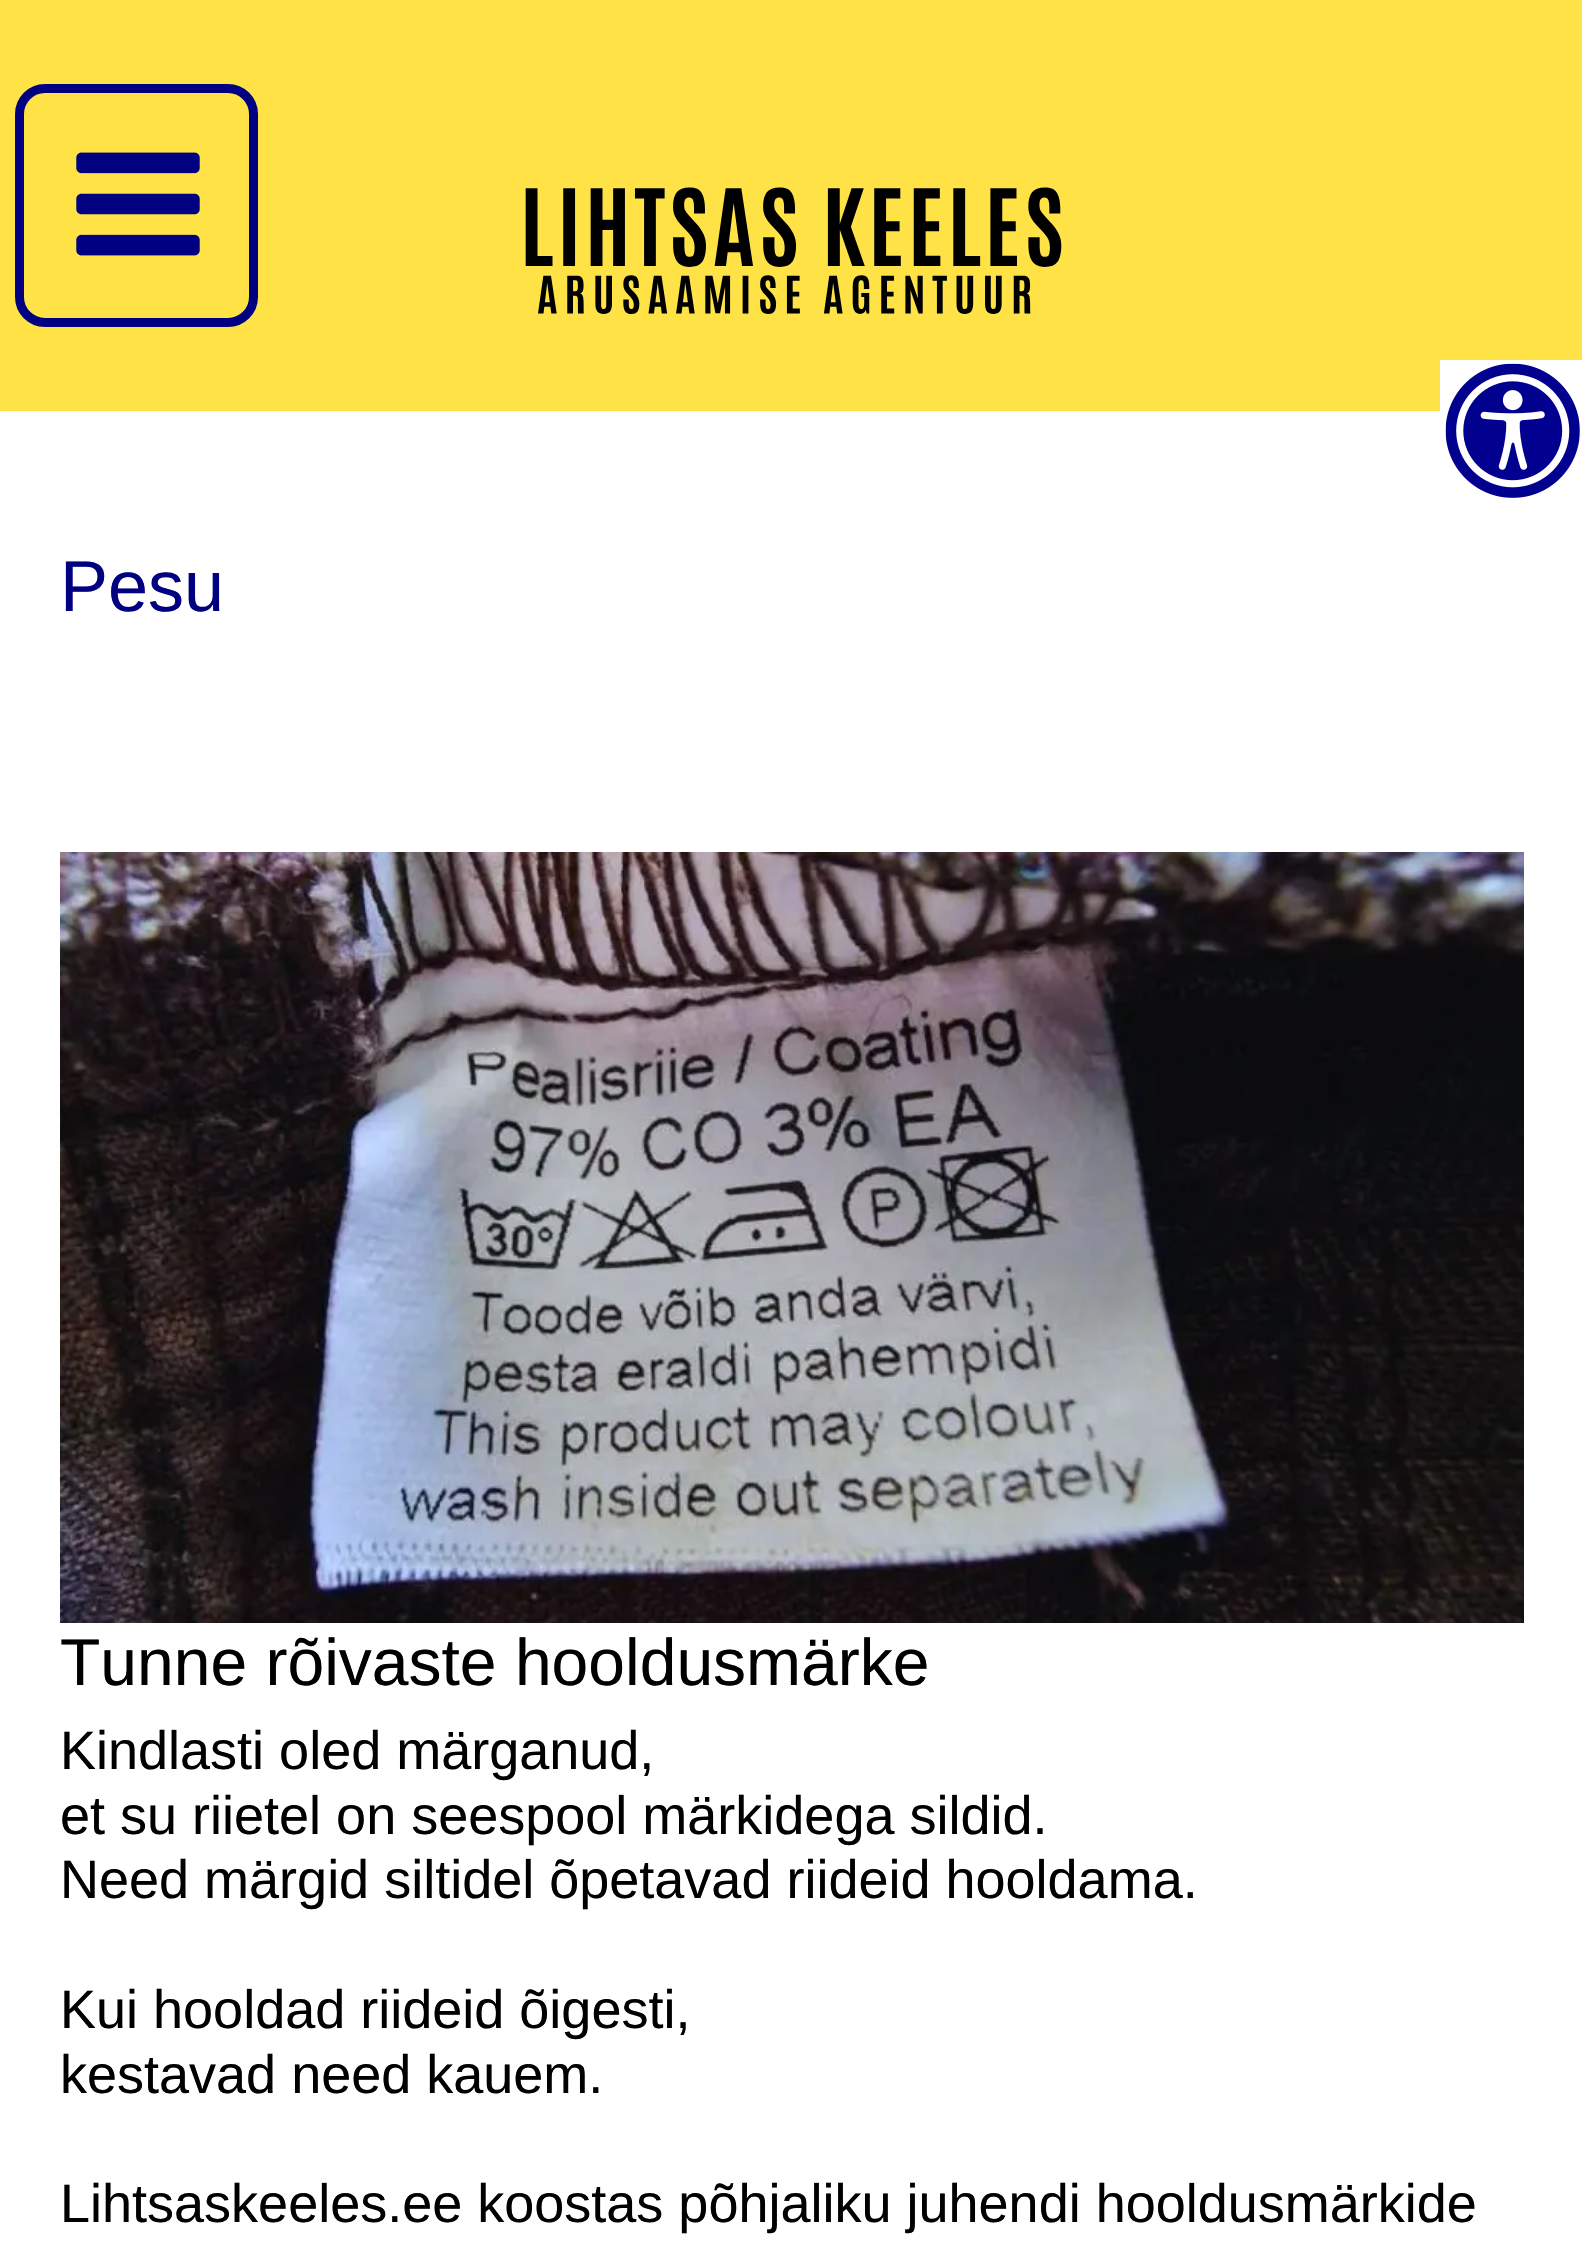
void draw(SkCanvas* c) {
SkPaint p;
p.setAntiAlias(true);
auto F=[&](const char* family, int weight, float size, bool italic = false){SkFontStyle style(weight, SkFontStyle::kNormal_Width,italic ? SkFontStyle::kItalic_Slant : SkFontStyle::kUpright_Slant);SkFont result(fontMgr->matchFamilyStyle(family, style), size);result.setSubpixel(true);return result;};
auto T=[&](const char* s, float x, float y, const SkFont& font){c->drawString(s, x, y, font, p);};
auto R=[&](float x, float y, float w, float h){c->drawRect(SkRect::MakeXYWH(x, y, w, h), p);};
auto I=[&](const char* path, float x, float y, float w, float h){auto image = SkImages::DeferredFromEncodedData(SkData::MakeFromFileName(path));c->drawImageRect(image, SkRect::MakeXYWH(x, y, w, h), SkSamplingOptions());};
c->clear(0xffffffff);
p.setColor(0xffffe245);
R(0,0,1582,411);
p.setColor(0xffffffff);
R(1440,360,142,51);
I("1.png",1445,363,135,135);
p.setStroke(true);
p.setStrokeWidth(9);
p.setColor(0xff000080);
c->drawRoundRect(SkRect::MakeXYWH(19.5,88.5,234,234),25.5,25.5,p);
I("2.png",76,152,124,104);
I("3.png",525,187,537,127);
auto f1 = F("Liberation Sans",400,72);
p.setStroke(false);
T("Pesu",60,611,f1);
I("4.png",60,852,1464,771);
auto f2 = F("Liberation Sans",400,66);
p.setColor(0xff000000);
T("Tunne rõivaste hooldusmärke",60,1685,f2);
auto f3 = F("Liberation Sans",400,54);
T("Kindlasti oled märganud,",60,1769,f3);
T("et su riietel on seespool märkidega sildid.",60,1834,f3);
T("Need märgid siltidel õpetavad riideid hooldama.",60,1898,f3);
T("Kui hooldad riideid õigesti,",60,2028,f3);
T("kestavad need kauem.",60,2093,f3);
T("Lihtsaskeeles.ee koostas põhjaliku juhendi hooldusmärkide",60,2222,f3);
}
